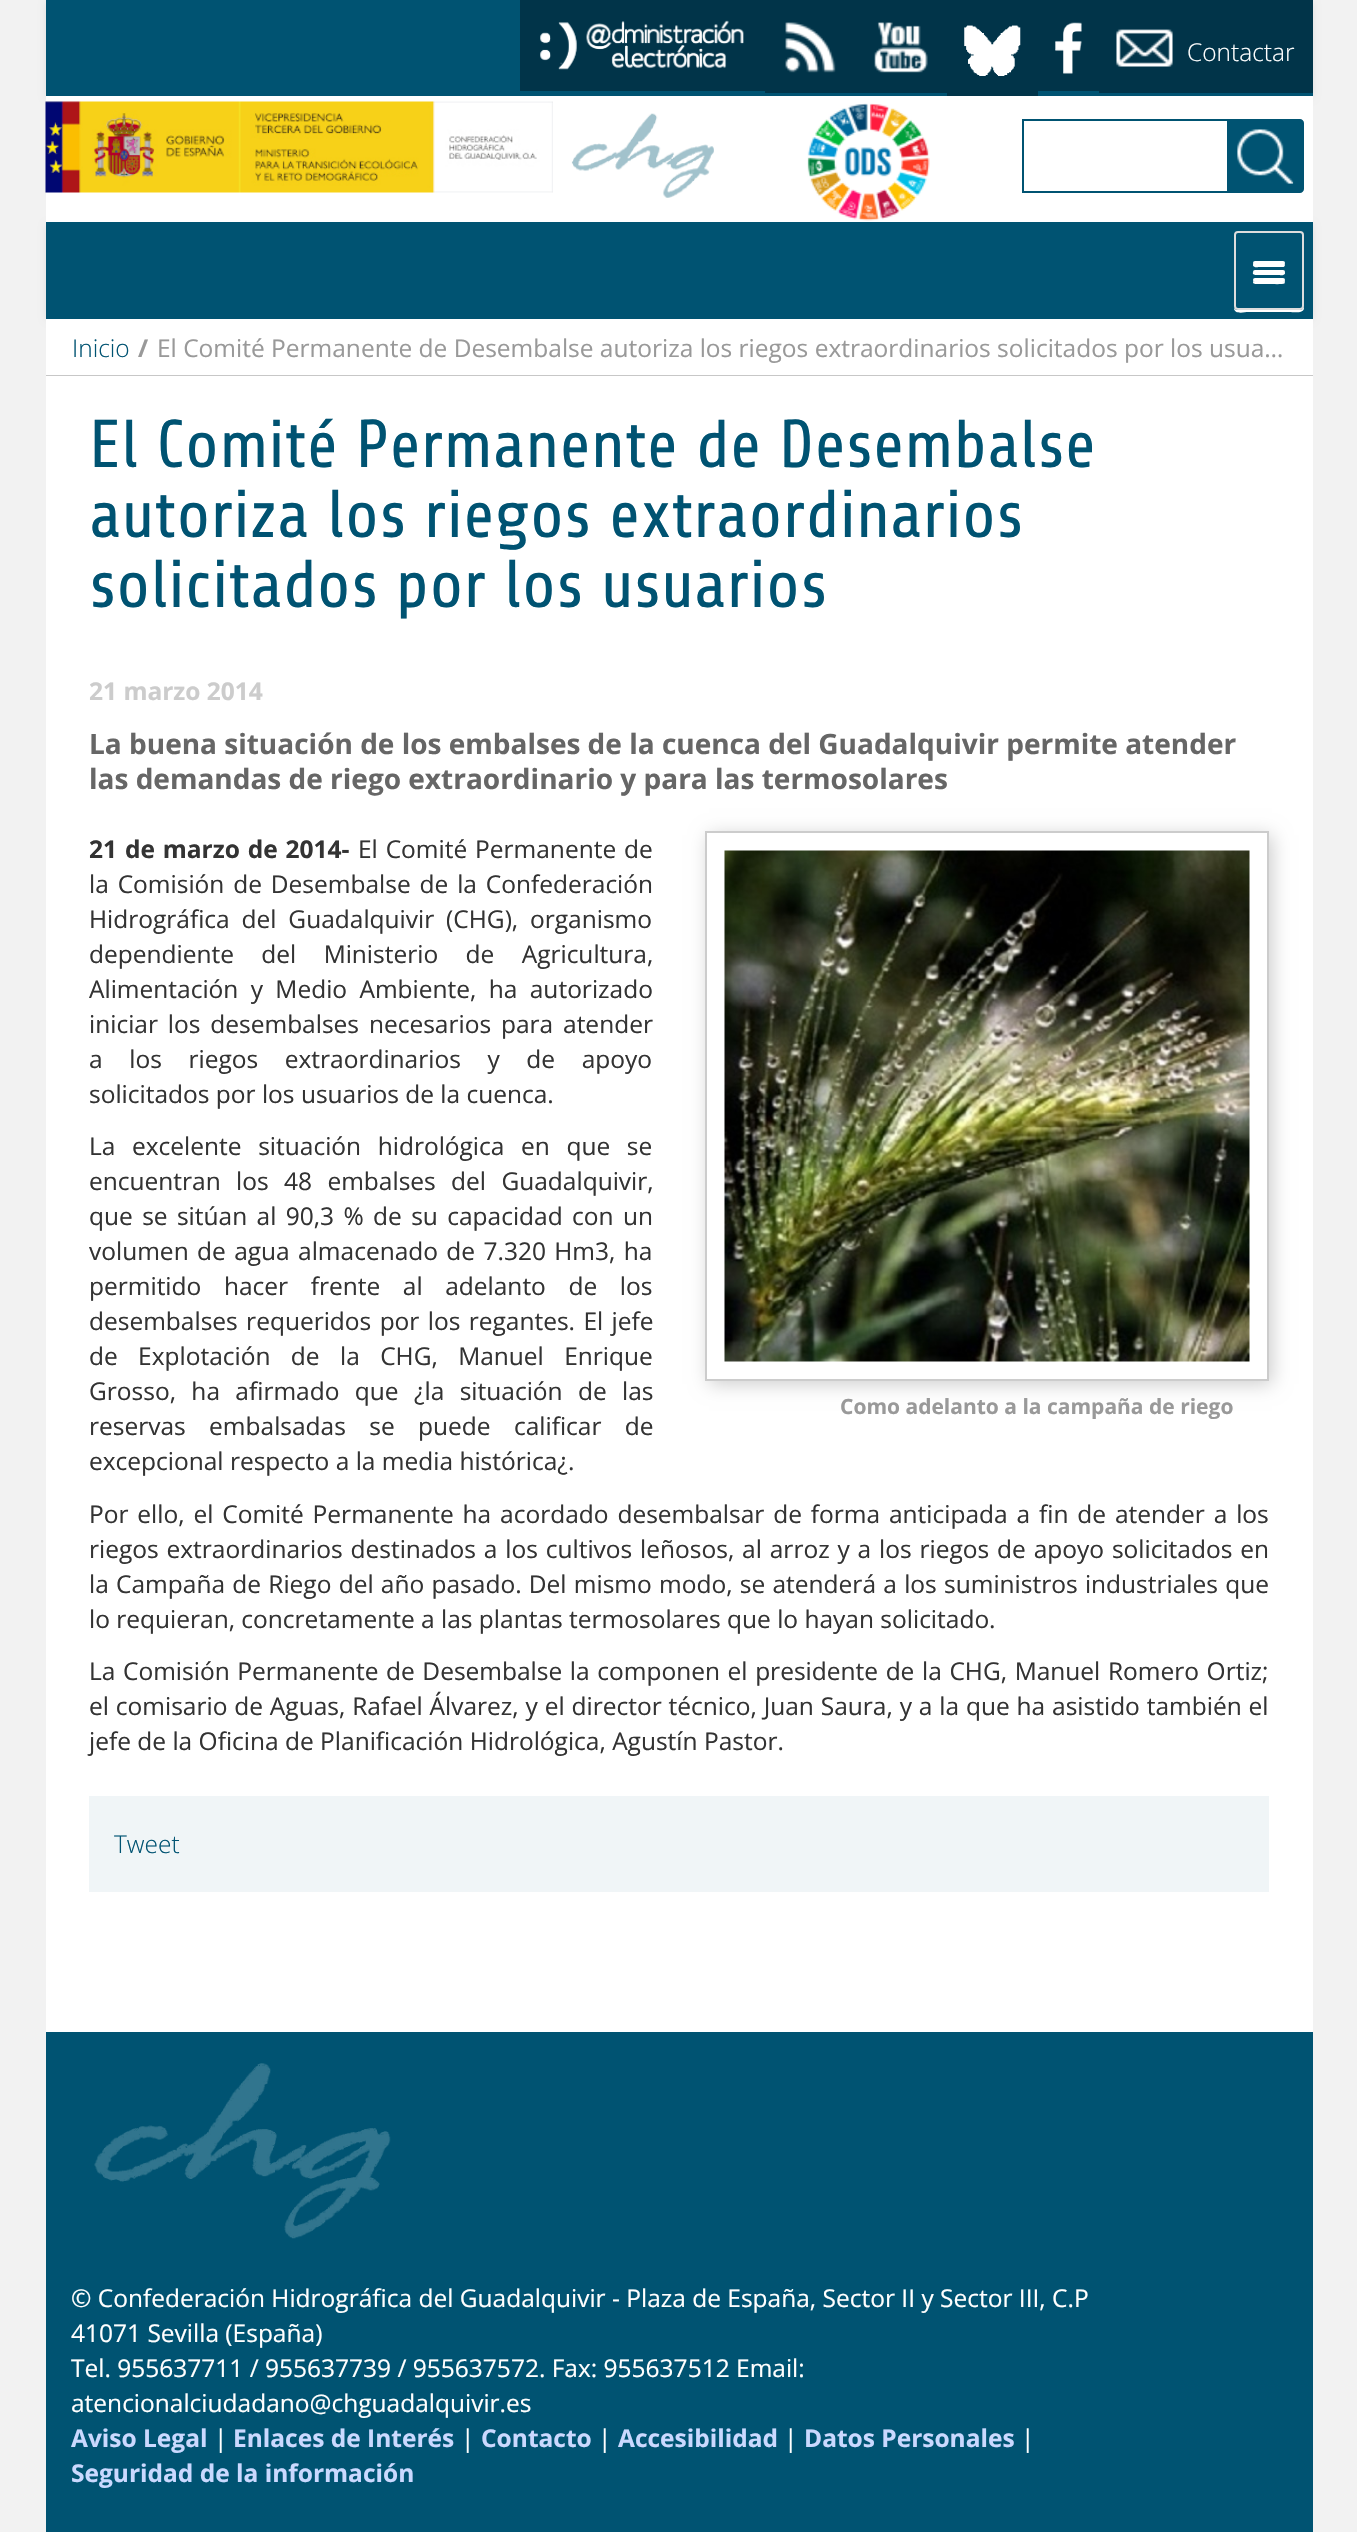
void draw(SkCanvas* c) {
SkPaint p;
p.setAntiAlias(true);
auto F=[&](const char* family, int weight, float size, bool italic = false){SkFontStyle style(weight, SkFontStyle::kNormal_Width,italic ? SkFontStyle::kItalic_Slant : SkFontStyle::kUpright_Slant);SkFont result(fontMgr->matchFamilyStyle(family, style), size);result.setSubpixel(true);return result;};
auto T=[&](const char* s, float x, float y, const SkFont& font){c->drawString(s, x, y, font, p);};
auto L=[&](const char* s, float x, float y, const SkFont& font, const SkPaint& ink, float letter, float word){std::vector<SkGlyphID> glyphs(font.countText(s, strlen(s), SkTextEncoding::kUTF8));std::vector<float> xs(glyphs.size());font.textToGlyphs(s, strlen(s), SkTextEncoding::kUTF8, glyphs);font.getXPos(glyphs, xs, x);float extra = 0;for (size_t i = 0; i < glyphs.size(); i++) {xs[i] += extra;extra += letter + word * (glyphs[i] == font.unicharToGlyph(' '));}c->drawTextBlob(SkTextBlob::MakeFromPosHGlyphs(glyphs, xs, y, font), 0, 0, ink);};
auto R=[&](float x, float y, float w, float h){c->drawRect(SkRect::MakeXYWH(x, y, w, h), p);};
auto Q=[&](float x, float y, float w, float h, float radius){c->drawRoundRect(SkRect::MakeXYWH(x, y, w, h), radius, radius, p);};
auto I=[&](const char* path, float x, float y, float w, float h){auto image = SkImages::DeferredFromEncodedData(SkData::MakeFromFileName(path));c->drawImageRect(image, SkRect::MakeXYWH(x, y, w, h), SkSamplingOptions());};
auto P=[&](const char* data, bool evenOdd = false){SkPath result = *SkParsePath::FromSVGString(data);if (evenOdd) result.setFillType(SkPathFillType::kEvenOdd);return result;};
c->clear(0xfff2f2f2);
p.setColor(0xffffffff);
R(46,376,1267,1656);
p.setColor(0x12000000);
p.setMaskFilter(SkMaskFilter::MakeBlur(kNormal_SkBlurStyle, 3.5));
c->drawRoundRect(SkRect::MakeXYWH(46,2,1267,96),4,4,p);
p.setMaskFilter(nullptr);
p.setColor(0xff005372);
R(46,0,1267,96);
p.setColor(0xff013449);
R(520,0,245,91);
I("1.png",540,20,204,50);
R(765,0,182,93);
I("2.png",785,22,51,51);
R(947,0,91,96);
I("3.png",964,25,57,51);
R(1038,0,61,91);
I("4.png",1055,22,27,52);
I("5.png",874,22,54,51);
R(1099,0,214,93);
I("6.png",1116,29,57,38);
auto f1 = F("Open Sans",300,24.5);
p.setColor(0xffffffff);
T("Contactar",1187,61,f1);
p.setColor(0x12000000);
p.setMaskFilter(SkMaskFilter::MakeBlur(kNormal_SkBlurStyle, 3.5));
c->drawRoundRect(SkRect::MakeXYWH(46,224,1267,96),4,4,p);
p.setMaskFilter(nullptr);
p.setColor(0xffffffff);
R(46,96,1267,126);
I("7.png",45,101,508,92);
I("8.png",571,113,143,85);
I("9.png",807,103,123,118);
p.setStroke(true);
p.setStrokeWidth(2);
p.setColor(0xff005372);
c->drawRect(SkRect::MakeXYWH(1023,120,205,72),p);
p.setStroke(false);
c->drawPath(P("M1228 120h72c1.5 0 3 1.5 3 3v66c0 1.5-1.5 3-3 3h-72z"),p);
p.setStroke(true);
c->drawPath(P("M1228 120h72c1.5 0 3 1.5 3 3v66c0 1.5-1.5 3-3 3h-72z"),p);
I("10.png",1237,129,57,55);
p.setStroke(false);
R(46,222,1267,97);
p.setColor(0xffffffff);
c->drawPath(P("M1234 308c0 7 11 4 14 4h42c2 0 14 2 14-4v-72v70c0 2-2 4-4 4h-63c-1 0-2-1-3-2z"),p);
p.setColor(0xff005372);
c->drawRoundRect(SkRect::MakeXYWH(1235,232,68,77),3,3,p);
p.setStroke(true);
p.setColor(0xffdddddd);
c->drawRoundRect(SkRect::MakeXYWH(1235,232,68,77),3,3,p);
p.setStroke(false);
p.setColor(0xffffffff);
c->drawPath(P("M1253.5 263.5c-.5 .5-.5 1.5-.5 2c.5 2.5 5.5 1.5 6.5 1.5h23.5c2 0 2.5-2.5 1-3.5l-1 .5h-28.5z"),p);
Q(1253,261,32,4,2);
c->drawPath(P("M1253 272c-1.5 4 6 3 6.5 3h19c1 0 6 1 6.5-1.5c0-.5 0-1.5-.5-2c0 1-1 1.5-1.5 1.5h-28c-1 0-1.5-.5-2-1z"),p);
Q(1253,270,32,4,2);
c->drawPath(P("M1253.5 281c-2.5 4 5.5 3 6 3h9.5c2.5 0 14 .5 15.5-.5c.5-1 .5-2 0-3l-1 1h-29z"),p);
Q(1253,278,32,4,2);
R(46,319,1267,56);
p.setColor(0xffc7c7c7);
R(46,375,1267,1);
p.setColor(0xff005372);
T("Inicio",72,357,f1);
auto f2 = F("Open Sans",700,24.5);
p.setColor(0xff999999);
T("/",138,357,f2);
auto f3 = F("Open Sans",400,24.5);
T("El Comité Permanente de Desembalse autoriza los riegos extraordinarios solicitados por los usua…",157,357,f3);
auto f4 = F("Share",400,67.4);
p.setColor(0xff005372);
T("El Comité Permanente de Desembalse",89,467,f4);
T("autoriza los riegos extraordinarios",89,537,f4);
T("solicitados por los usuarios",89,607,f4);
p.setColor(0xffcccccc);
T("21 marzo 2014",89,700,f2);
auto f5 = F("Open Sans",700,28);
p.setColor(0xff666666);
T("La buena situación de los embalses de la cuenca del Guadalquivir permite atender",89,754,f5);
T("las demandas de riego extraordinario y para las termosolares",89,789,f5);
p.setColor(0xff333333);
L("21 de marzo de 2014-",89,858,f2,p,0,1.5);
L("El Comité Permanente de",358,858,f3,p,0,1.5);
L("la Comisión de Desembalse de la Confederación",89,893,f3,p,0,2.5);
L("Hidrográfica del Guadalquivir (CHG), organismo",89,928,f3,p,0,5.5);
L("dependiente del Ministerio de Agricultura,",89,963,f3,p,0,21);
L("Alimentación y Medio Ambiente, ha autorizado",89,998,f3,p,0,6);
L("iniciar los desembalses necesarios para atender",89,1033,f3,p,0,3.5);
L("a los riegos extraordinarios y de apoyo",89,1068,f3,p,0,20.25);
T("solicitados por los usuarios de la cuenca.",89,1103,f3);
L("La excelente situación hidrológica en que se",89,1155,f3,p,0,10.25);
L("encuentran los 48 embalses del Guadalquivir,",89,1190,f3,p,0,9);
L("que se sitúan al 90,3 % de su capacidad con un",89,1225,f3,p,0,3);
L("volumen de agua almacenado de 7.320 Hm3, ha",89,1260,f3,p,0,2);
L("permitido hacer frente al adelanto de los",89,1295,f3,p,0,16.25);
L("desembalses requeridos por los regantes. El jefe",89,1330,f3,p,0,2);
L("de Explotación de la CHG, Manuel Enrique",89,1365,f3,p,0,14);
L("Grosso, ha afirmado que ¿la situación de las",89,1400,f3,p,0,9);
L("reservas embalsadas se puede calificar de",89,1435,f3,p,0,17);
T("excepcional respecto a la media histórica¿.",89,1470,f3);
p.setColor(0xffcccccc);
p.setMaskFilter(SkMaskFilter::MakeBlur(kNormal_SkBlurStyle, 9));
c->drawRect(SkRect::MakeXYWH(709,835,563,549),p);
p.setMaskFilter(nullptr);
p.setColor(0xffffffff);
c->drawRect(SkRect::MakeXYWH(706,832,562,548),p);
p.setStroke(true);
p.setColor(0xffcccccc);
c->drawRect(SkRect::MakeXYWH(706,832,562,548),p);
I("11.png",724,850,526,512);
auto f6 = F("Open Sans",700,21);
p.setStroke(false);
p.setColor(0xff999999);
T("Como adelanto a la campaña de riego",840,1414,f6);
p.setColor(0xff333333);
L("Por ello, el Comité Permanente ha acordado desembalsar de forma anticipada a fin de atender a los",89,1523,f3,p,0,2.5);
L("riegos extraordinarios destinados a los cultivos leñosos, al arroz y a los riegos de apoyo solicitados en",89,1558,f3,p,0,1.5);
L("la Campaña de Riego del año pasado. Del mismo modo, se atenderá a los suministros industriales que",89,1593,f3,p,0,.9);
T("lo requieran, concretamente a las plantas termosolares que lo hayan solicitado.",89,1628,f3);
L("La Comisión Permanente de Desembalse la componen el presidente de la CHG, Manuel Romero Ortiz;",89,1680,f3,p,0,1.25);
L("el comisario de Aguas, Rafael Álvarez, y el director técnico, Juan Saura, y a la que ha asistido también el",89,1715,f3,p,0,.5);
T("jefe de la Oficina de Planificación Hidrológica, Agustín Pastor.",89,1750,f3);
p.setColor(0xfff0f5f7);
R(89,1796,1180,96);
p.setColor(0xff005372);
T("Tweet",114,1853,f1);
R(46,2032,1267,500);
I("12.png",94,2063,297,176);
p.setColor(0xffffffff);
T("© Confederación Hidrográfica del Guadalquivir - Plaza de España, Sector II y Sector III, C.P",71,2307,f3);
T("41071 Sevilla (España)",71,2342,f3);
T("Tel. 955637711 / 955637739 / 955637572. Fax: 955637512 Email:",71,2377,f3);
T("atencionalciudadano@chguadalquivir.es",71,2412,f3);
p.setColor(0xffcad9ff);
T("Aviso Legal",71,2447,f2);
p.setColor(0xffffffff);
T("|",214,2447,f3);
p.setColor(0xffcad9ff);
T("Enlaces de Interés",233,2447,f2);
p.setColor(0xffffffff);
T("|",461,2447,f3);
p.setColor(0xffcad9ff);
T("Contacto",481,2447,f2);
p.setColor(0xffffffff);
T("|",598,2447,f3);
p.setColor(0xffcad9ff);
T("Accesibilidad",618,2447,f2);
p.setColor(0xffffffff);
T("|",784,2447,f3);
p.setColor(0xffcad9ff);
T("Datos Personales",804,2447,f2);
p.setColor(0xffffffff);
T("|",1021,2447,f3);
p.setColor(0xffcad9ff);
T("Seguridad de la información",71,2482,f2);
}
